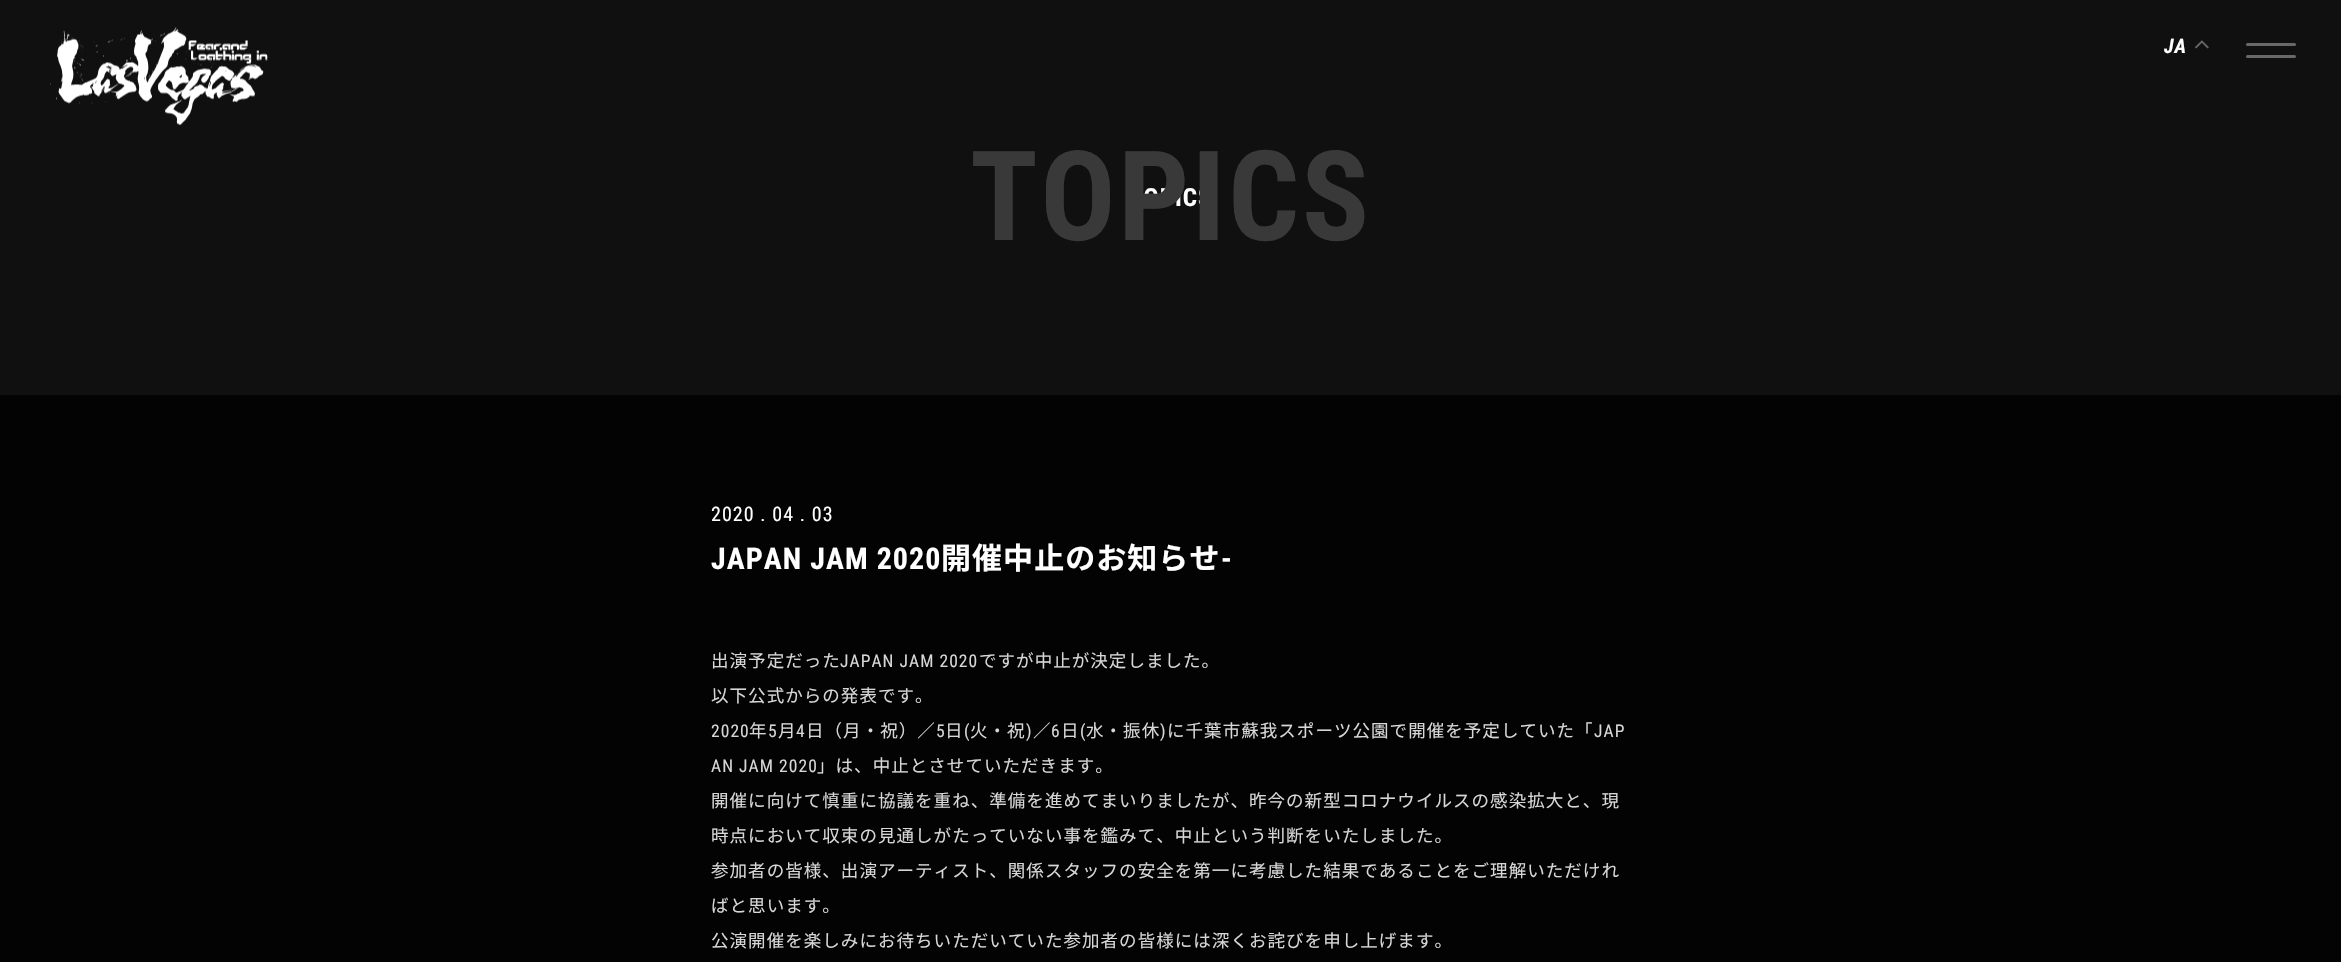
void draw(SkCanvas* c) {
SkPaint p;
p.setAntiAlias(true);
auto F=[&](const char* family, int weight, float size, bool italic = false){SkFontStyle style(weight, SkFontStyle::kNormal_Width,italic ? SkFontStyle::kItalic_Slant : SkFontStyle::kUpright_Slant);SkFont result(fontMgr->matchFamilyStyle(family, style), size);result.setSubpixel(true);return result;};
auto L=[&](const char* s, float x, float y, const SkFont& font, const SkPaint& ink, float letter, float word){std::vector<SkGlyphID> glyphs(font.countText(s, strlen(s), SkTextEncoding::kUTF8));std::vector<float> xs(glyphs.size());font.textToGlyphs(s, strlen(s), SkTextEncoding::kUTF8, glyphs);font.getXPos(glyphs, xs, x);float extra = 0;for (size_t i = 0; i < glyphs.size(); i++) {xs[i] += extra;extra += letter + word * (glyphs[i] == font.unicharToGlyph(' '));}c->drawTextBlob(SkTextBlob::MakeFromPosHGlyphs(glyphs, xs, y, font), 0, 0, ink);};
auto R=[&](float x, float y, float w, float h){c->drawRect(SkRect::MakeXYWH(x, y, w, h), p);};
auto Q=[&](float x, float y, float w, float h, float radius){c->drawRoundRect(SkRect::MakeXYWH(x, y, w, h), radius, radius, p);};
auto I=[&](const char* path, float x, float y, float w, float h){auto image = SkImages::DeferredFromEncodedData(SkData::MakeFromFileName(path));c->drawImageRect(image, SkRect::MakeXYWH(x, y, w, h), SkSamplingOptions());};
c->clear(0xff101010);
I("1.png",50,27,218,99);
auto f1 = F("Roboto Condensed",700,20,true);
p.setColor(0xffffffff);
L("JA",2164,53,f1,p,1.05,0);
I("2.png",2195,40,14,9);
p.setColor(0xff686868);
Q(2246,43,50,3,1.5);
Q(2246,55,50,3,1.5);
auto f2 = F("Roboto Condensed",700,25);
p.setColor(0xffffffff);
L("TOPICS",1129,206,f2,p,1.05,0);
auto f3 = F("Roboto Condensed",700,125);
p.setColor(0xff393939);
L("TOPICS",970,240,f3,p,2.5,0);
p.setColor(0xff030303);
R(0,395,2341,567);
auto f4 = F("Roboto Condensed",400,20);
p.setColor(0xffffffff);
L("2020 . 04 . 03",711,521,f4,p,1.05,0);
auto f5 = F("Roboto Condensed",700,30);
L("JAPAN JAM 2020",711,569,f5,p,1.05,0);
auto f6 = F("Noto Sans JP",700,30);
L("開催中止のお知らせ",941,569,f6,p,1.05,0);
L("-",1221,569,f5,p,1.05,0);
auto f7 = F("Noto Sans JP",400,17.5);
p.setColor(0xffd7d7d7);
L("出演予定だった",711,667,f7,p,1.05,0);
auto f8 = F("Roboto Condensed",400,17.5);
L("JAPAN JAM 2020",840,667,f8,p,1.05,0);
L("ですが中止が決定しました。",979,667,f7,p,1.05,0);
L("以下公式からの発表です。",711,702,f7,p,1.05,0);
L("2020",711,737,f8,p,1.05,0);
L("年",749,737,f7,p,1.05,0);
L("5",768,737,f8,p,1.05,0);
L("月",778,737,f7,p,1.05,0);
L("4",796,737,f8,p,1.05,0);
L("日（月・祝）／",806,737,f7,p,1.05,0);
L("5",936,737,f8,p,1.05,0);
L("日",945,737,f7,p,1.05,0);
L("(",964,737,f8,p,1.05,0);
L("火・祝",970,737,f7,p,1.05,0);
L(")",1026,737,f8,p,1.05,0);
L("／",1033,737,f7,p,1.05,0);
L("6",1051,737,f8,p,1.05,0);
L("日",1061,737,f7,p,1.05,0);
L("(",1080,737,f8,p,1.05,0);
L("水・振休",1086,737,f7,p,1.05,0);
L(")",1160,737,f8,p,1.05,0);
L("に千葉市蘇我スポーツ公園で開催を予定していた「",1167,737,f7,p,1.05,0);
L("JAP",1594,737,f8,p,1.05,0);
L("AN JAM 2020",711,772,f8,p,1.05,0);
L("」は、中止とさせていただきます。",817,772,f7,p,1.05,0);
L("開催に向けて慎重に協議を重ね、準備を進めてまいりましたが、昨今の新型コロナウイルスの感染拡大と、現",711,807,f7,p,1.05,0);
L("時点において収束の見通しがたっていない事を鑑みて、中止という判断をいたしました。",711,842,f7,p,1.05,0);
L("参加者の皆様、出演アーティスト、関係スタッフの安全を第一に考慮した結果であることをご理解いただけれ",711,877,f7,p,1.05,0);
L("ばと思います。",711,912,f7,p,1.05,0);
L("公演開催を楽しみにお待ちいただいていた参加者の皆様には深くお詫びを申し上げます。",711,947,f7,p,1.05,0);
}
